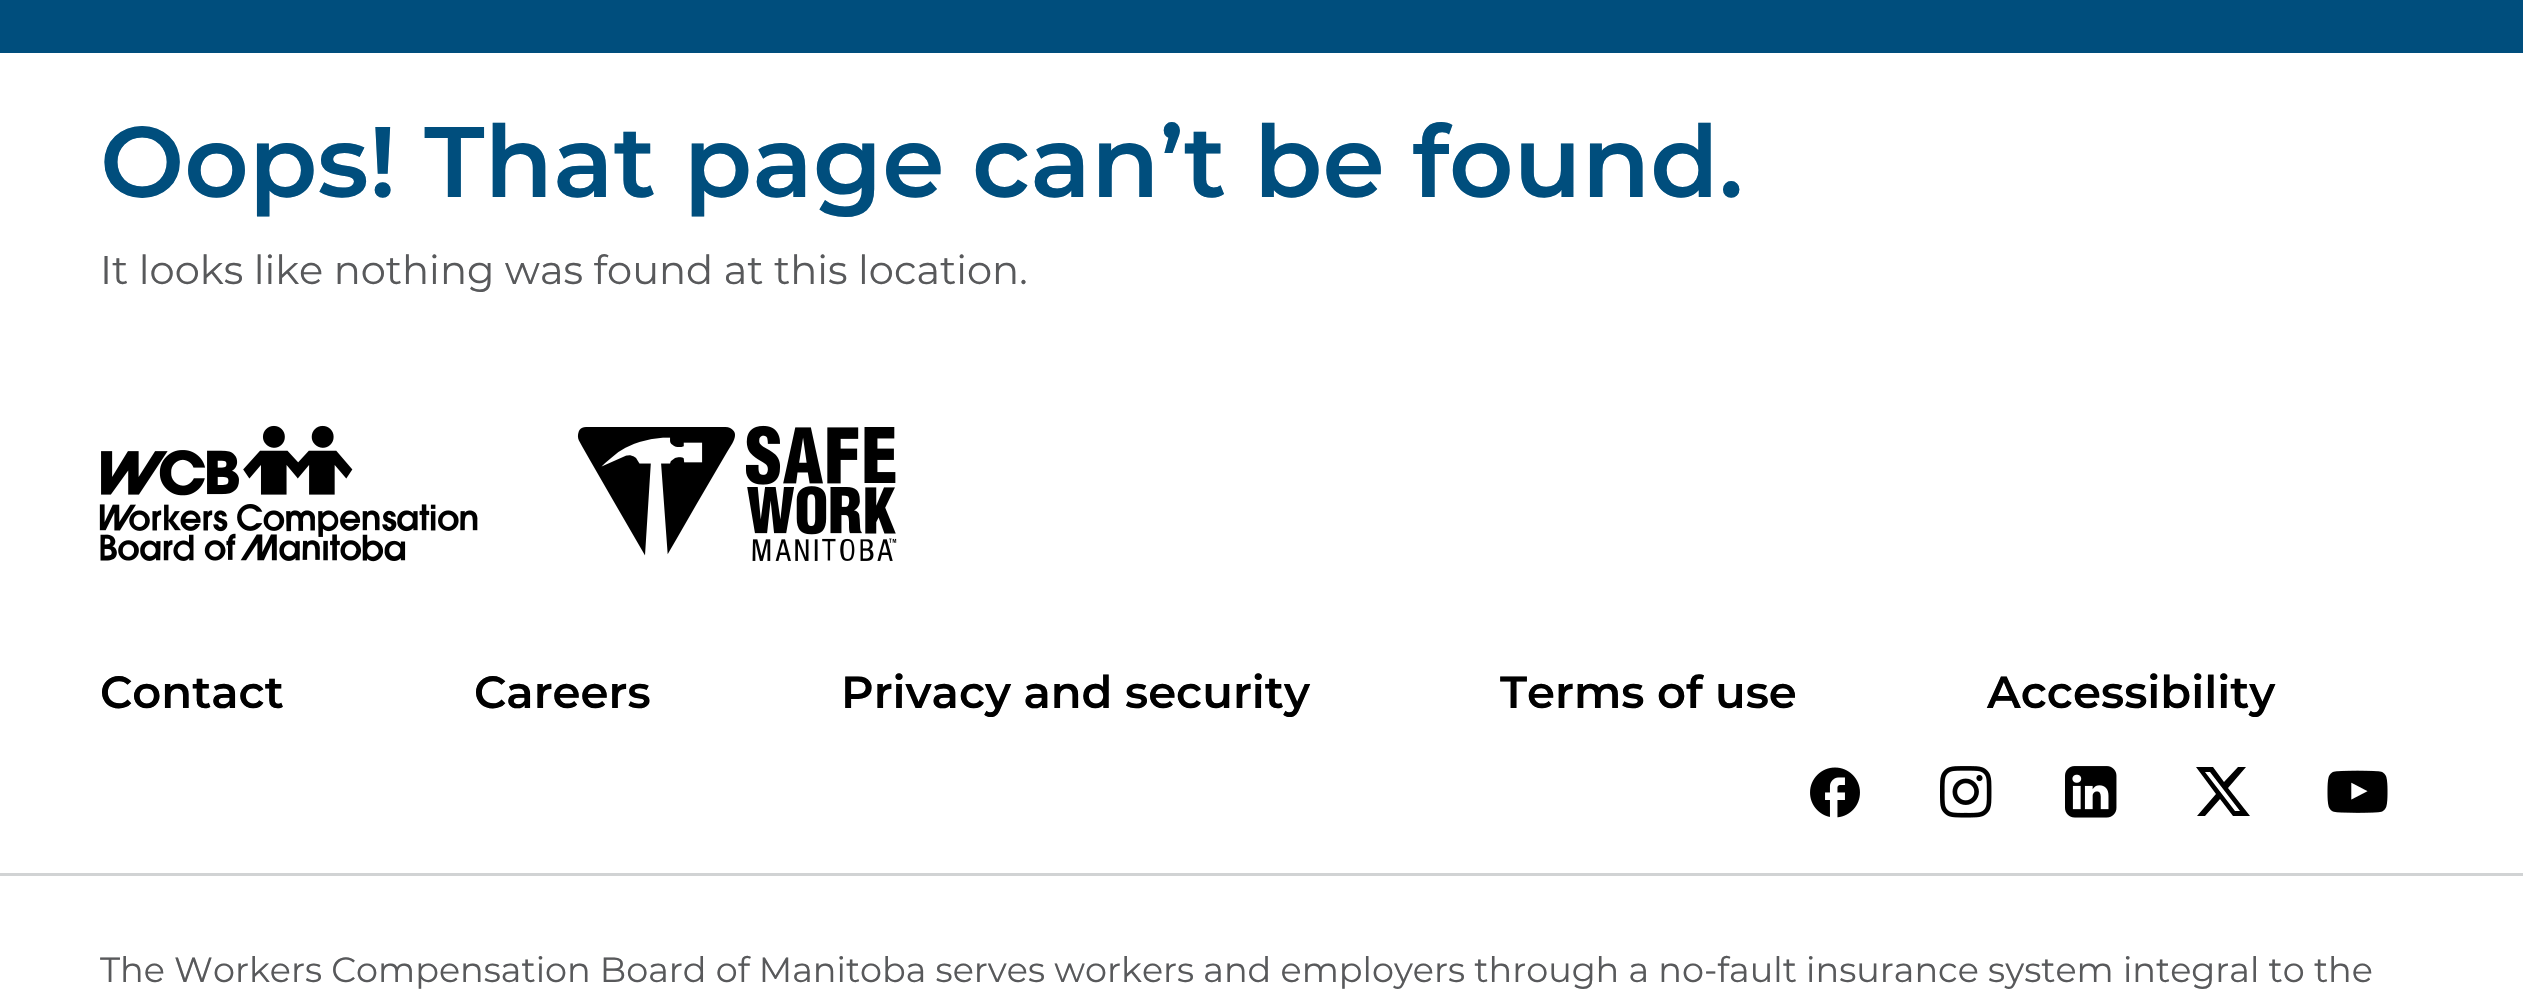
void draw(SkCanvas* c) {
SkPaint p;
p.setAntiAlias(true);
auto F=[&](const char* family, int weight, float size, bool italic = false){SkFontStyle style(weight, SkFontStyle::kNormal_Width,italic ? SkFontStyle::kItalic_Slant : SkFontStyle::kUpright_Slant);SkFont result(fontMgr->matchFamilyStyle(family, style), size);result.setSubpixel(true);return result;};
auto T=[&](const char* s, float x, float y, const SkFont& font){c->drawString(s, x, y, font, p);};
auto R=[&](float x, float y, float w, float h){c->drawRect(SkRect::MakeXYWH(x, y, w, h), p);};
auto I=[&](const char* path, float x, float y, float w, float h){auto image = SkImages::DeferredFromEncodedData(SkData::MakeFromFileName(path));c->drawImageRect(image, SkRect::MakeXYWH(x, y, w, h), SkSamplingOptions());};
auto P=[&](const char* data, bool evenOdd = false){SkPath result = *SkParsePath::FromSVGString(data);if (evenOdd) result.setFillType(SkPathFillType::kEvenOdd);return result;};
c->clear(0xffffffff);
p.setColor(0xff004e7d);
R(0,0,2523,53);
auto f1 = F("Montserrat",600,100);
T("Oops! That page can’t be found.",100,197,f1);
auto f2 = F("Montserrat",400,40);
p.setColor(0xff58595b);
T("It looks like nothing was found at this location.",100,284,f2);
I("1.png",99,425,379,137);
I("2.png",577,425,320,136);
auto f3 = F("Montserrat",600,45);
p.setColor(0xff000000);
T("Contact",100,708,f3);
T("Careers",474,708,f3);
T("Privacy and security",841,708,f3);
T("Terms of use",1500,708,f3);
T("Accessibility",1987,708,f3);
I("3.png",1810,767,50,51);
I("4.png",1940,766,52,52);
I("5.png",2065,766,52,52);
c->drawPath(P("M2238 767h8l-18 21l22 28h-17l-13-17l-15 17h-8l19-22l-20-27h17l11 15zm-3 44h5l-30-39h-5z"),p);
I("6.png",2327,770,61,43);
p.setColor(0xffd1d3d4);
R(0,873,2523,3);
auto f4 = F("Montserrat",400,35);
p.setColor(0xff58595b);
T("The Workers Compensation Board of Manitoba serves workers and employers through a no-fault insurance system integral to the",100,982,f4);
}
